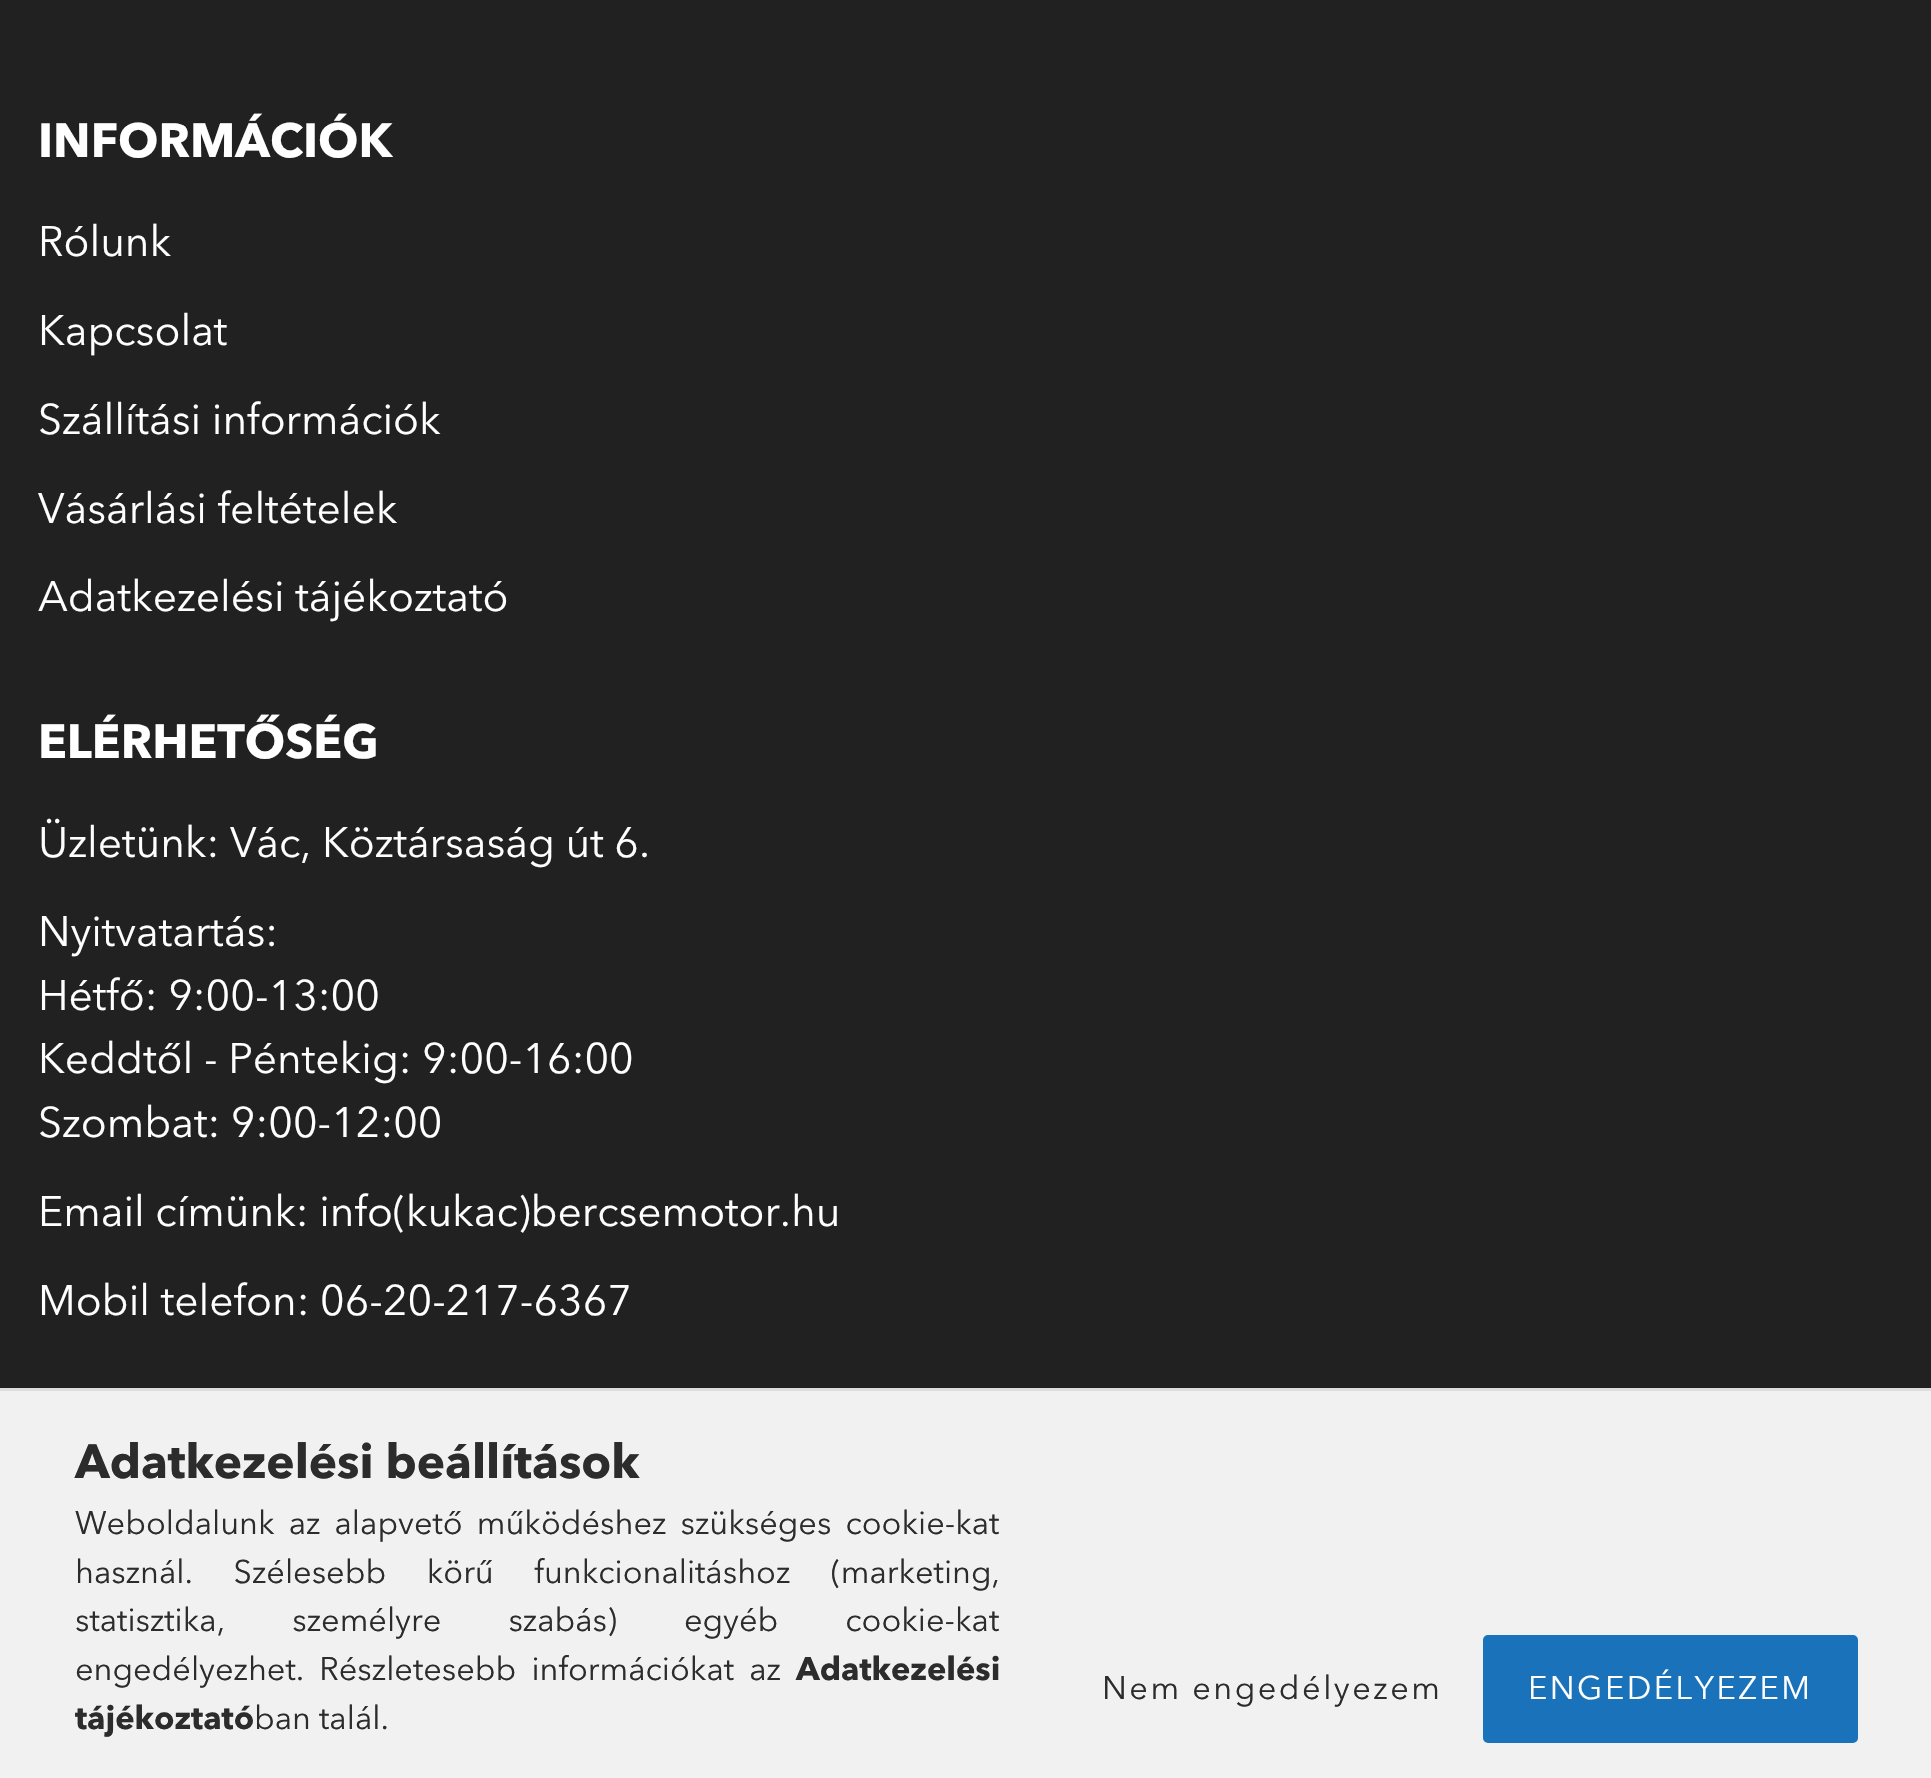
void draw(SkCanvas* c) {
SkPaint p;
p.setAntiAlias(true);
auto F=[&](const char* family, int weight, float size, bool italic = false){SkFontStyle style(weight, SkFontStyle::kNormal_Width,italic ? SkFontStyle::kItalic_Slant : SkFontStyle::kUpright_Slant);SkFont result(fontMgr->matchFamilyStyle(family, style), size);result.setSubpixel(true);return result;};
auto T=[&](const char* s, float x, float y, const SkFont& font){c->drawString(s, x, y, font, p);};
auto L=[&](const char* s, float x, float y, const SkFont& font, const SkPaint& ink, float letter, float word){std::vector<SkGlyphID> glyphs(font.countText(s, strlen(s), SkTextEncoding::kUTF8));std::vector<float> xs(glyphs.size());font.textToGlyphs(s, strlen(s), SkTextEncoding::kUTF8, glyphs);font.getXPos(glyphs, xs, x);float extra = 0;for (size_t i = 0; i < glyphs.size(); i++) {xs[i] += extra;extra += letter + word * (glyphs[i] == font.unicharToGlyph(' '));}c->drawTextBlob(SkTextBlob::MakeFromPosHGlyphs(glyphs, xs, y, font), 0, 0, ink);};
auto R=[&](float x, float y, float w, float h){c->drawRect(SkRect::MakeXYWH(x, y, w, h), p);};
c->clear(0xff212121);
auto f1 = F("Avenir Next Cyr",700,47.5);
p.setColor(0xffffffff);
T("INFORMÁCIÓK",38,157,f1);
auto f2 = F("Avenir Next Cyr",400,42.5);
T("Rólunk",38,256,f2);
T("Kapcsolat",38,345,f2);
T("Szállítási információk",38,434,f2);
T("Vásárlási feltételek",38,523,f2);
T("Adatkezelési tájékoztató",38,611,f2);
T("ELÉRHETŐSÉG",38,758,f1);
T("Üzletünk: Vác, Köztársaság út 6.",38,857,f2);
T("Nyitvatartás:",38,946,f2);
T("Hétfő: 9:00-13:00",38,1010,f2);
T("Keddtől - Péntekig: 9:00-16:00",38,1073,f2);
T("Szombat: 9:00-12:00",38,1137,f2);
T("Email címünk: info(kukac)bercsemotor.hu",38,1226,f2);
T("Mobil telefon: 06-20-217-6367",38,1315,f2);
p.setColor(0xfff1f1f1);
R(0,1391,1931,387);
p.setColor(0xffdddddd);
R(0,1388,1931,3);
p.setColor(0xff2c2c2c);
T("Adatkezelési beállítások",75,1478,f1);
auto f3 = F("Avenir Next Cyr",400,32.5);
L("Weboldalunk az alapvető működéshez szükséges cookie-kat",75,1534,f3,p,0,6);
L("használ. Szélesebb körű funkcionalitáshoz (marketing,",75,1583,f3,p,0,32.5);
L("statisztika, személyre szabás) egyéb cookie-kat",75,1631,f3,p,0,59);
L("engedélyezhet. Részletesebb információkat az",75,1680,f3,p,0,7);
auto f4 = F("Avenir Next Cyr",700,32.5);
T("Adatkezelési",796,1680,f4);
T("tájékoztató",75,1729,f4);
T("ban talál.",254,1729,f3);
L("Nem engedélyezem",1102,1699,f3,p,2.5,0);
p.setColor(0xff1a73ba);
c->drawRoundRect(SkRect::MakeXYWH(1484.5,1636.5,372,105),3.5,3.5,p);
p.setStroke(true);
p.setStrokeWidth(3);
c->drawRoundRect(SkRect::MakeXYWH(1484.5,1636.5,372,105),3.5,3.5,p);
p.setStroke(false);
p.setColor(0xffffffff);
L("ENGEDÉLYEZEM",1528,1699,f3,p,2.5,0);
}
